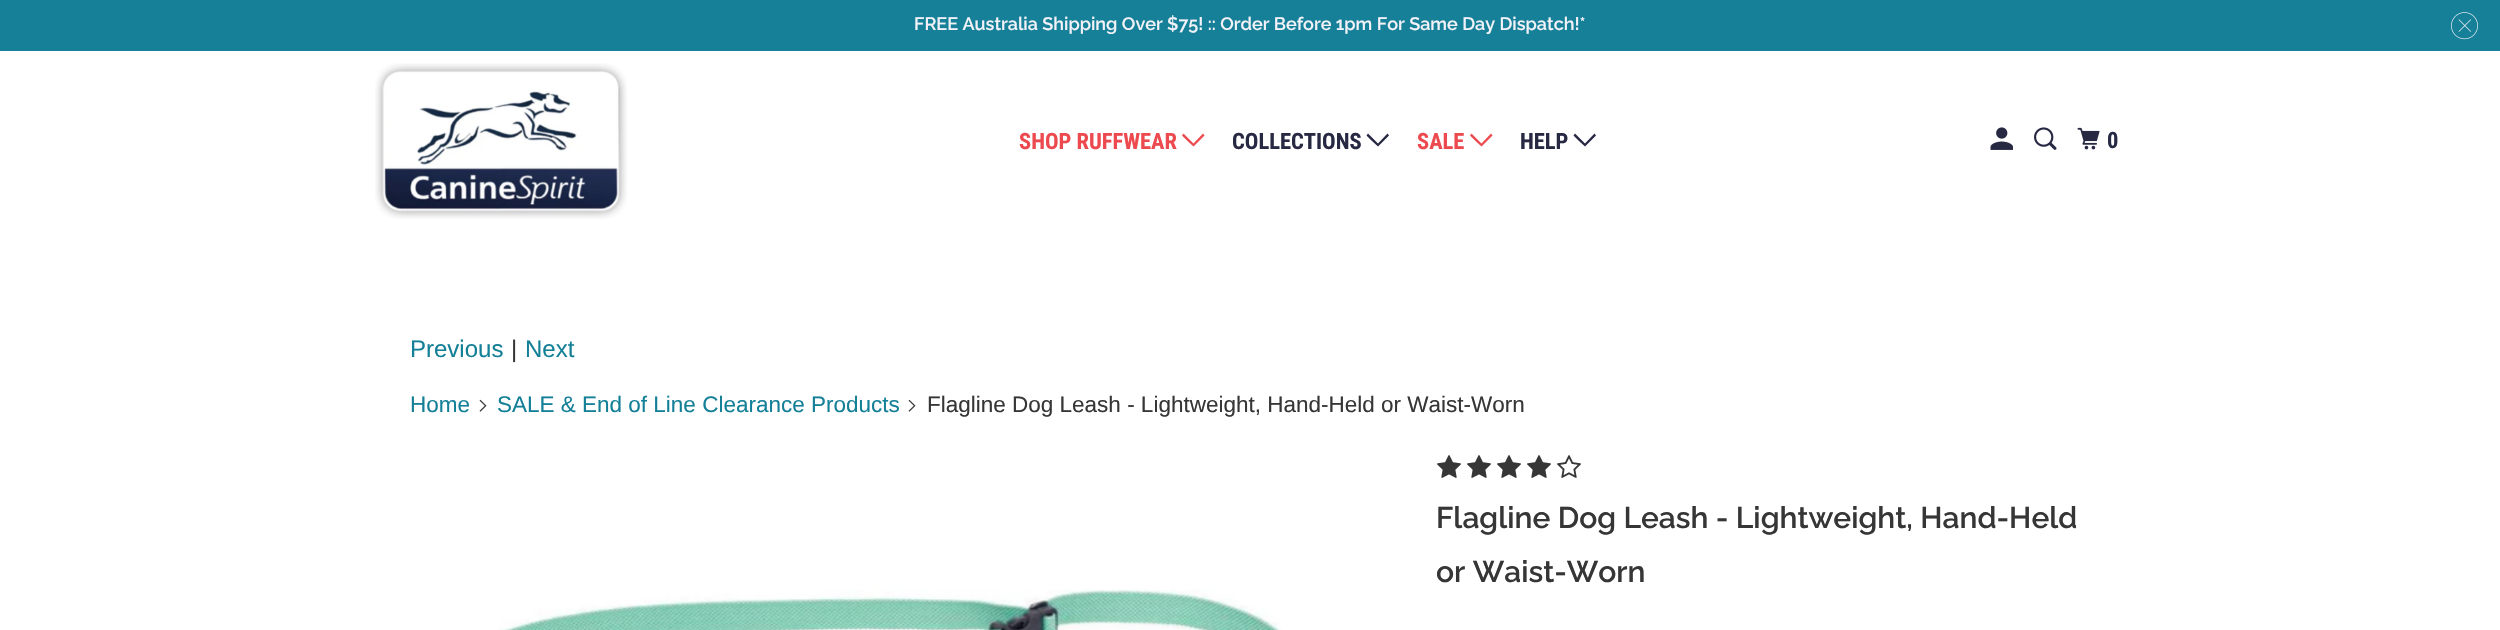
void draw(SkCanvas* c) {
SkPaint p;
p.setAntiAlias(true);
auto F=[&](const char* family, int weight, float size, bool italic = false){SkFontStyle style(weight, SkFontStyle::kNormal_Width,italic ? SkFontStyle::kItalic_Slant : SkFontStyle::kUpright_Slant);SkFont result(fontMgr->matchFamilyStyle(family, style), size);result.setSubpixel(true);return result;};
auto T=[&](const char* s, float x, float y, const SkFont& font){c->drawString(s, x, y, font, p);};
auto R=[&](float x, float y, float w, float h){c->drawRect(SkRect::MakeXYWH(x, y, w, h), p);};
auto I=[&](const char* path, float x, float y, float w, float h){auto image = SkImages::DeferredFromEncodedData(SkData::MakeFromFileName(path));c->drawImageRect(image, SkRect::MakeXYWH(x, y, w, h), SkSamplingOptions());};
auto P=[&](const char* data, bool evenOdd = false){SkPath result = *SkParsePath::FromSVGString(data);if (evenOdd) result.setFillType(SkPathFillType::kEvenOdd);return result;};
c->clear(0xffffffff);
p.setColor(0xff158097);
R(0,0,2500,51);
auto f1 = F("Raleway",600,18);
p.setColor(0xfff2f2f8);
T("FREE Australia Shipping Over $75! :: Order Before 1pm For Same Day Dispatch!*",914,30,f1);
I("1.png",2451,12,27,28);
I("2.png",375,63,252,156);
auto f2 = F("Roboto Condensed",700,22.5);
p.setColor(0xffed4a4f);
T("SHOP RUFFWEAR",1019,149,f2);
c->drawPath(P("M1187.5 141l-5.5-5.5l1.5-2l10 10l9.5-10l1.5 2l-11 11z"),p);
p.setColor(0xff272943);
T("COLLECTIONS",1232,149,f2);
c->drawPath(P("M1372 141l-5.5-5.5l1.5-2l10 10l9.5-10l1.5 2l-11 11z"),p);
p.setColor(0xffed4a4f);
T("SALE",1417,149,f2);
c->drawPath(P("M1475.5 141l-5.5-5.5l1.5-2l10 10l9.5-10l1.5 2l-11 11z"),p);
p.setColor(0xff272943);
T("HELP",1520,149,f2);
c->drawPath(P("M1579 141l-5.5-5.5l1.5-2l10 10l9.5-10l1.5 2l-11 11z"),p);
I("3.png",1990,127,23,23);
I("4.png",2034,127,23,23);
I("5.png",2077,127,23,23);
T("0",2107,148,f2);
auto f3 = F("Liberation Sans",400,24);
p.setColor(0xff148097);
T("Previous",410,357,f3);
p.setColor(0xff363636);
T("|",511,357,f3);
p.setColor(0xff148097);
T("Next",525,357,f3);
auto f4 = F("Liberation Sans",400,22.5);
T("Home",410,412,f4);
I("6.png",479,399,8,13);
T("SALE & End of Line Clearance Products",497,412,f4);
I("6.png",908,399,8,13);
p.setColor(0xff363636);
T("Flagline Dog Leash - Lightweight, Hand-Held or Waist-Worn",927,412,f4);
I("7.png",1437,455,24,23);
I("7.png",1467,455,24,23);
I("7.png",1497,455,24,23);
I("7.png",1527,455,24,23);
I("8.png",1557,455,24,23);
auto f5 = F("Raleway",600,30);
T("Flagline Dog Leash - Lightweight, Hand-Held",1436,528,f5);
T("or Waist-Worn",1436,582,f5);
I("9.png",499,589,783,41);
}
